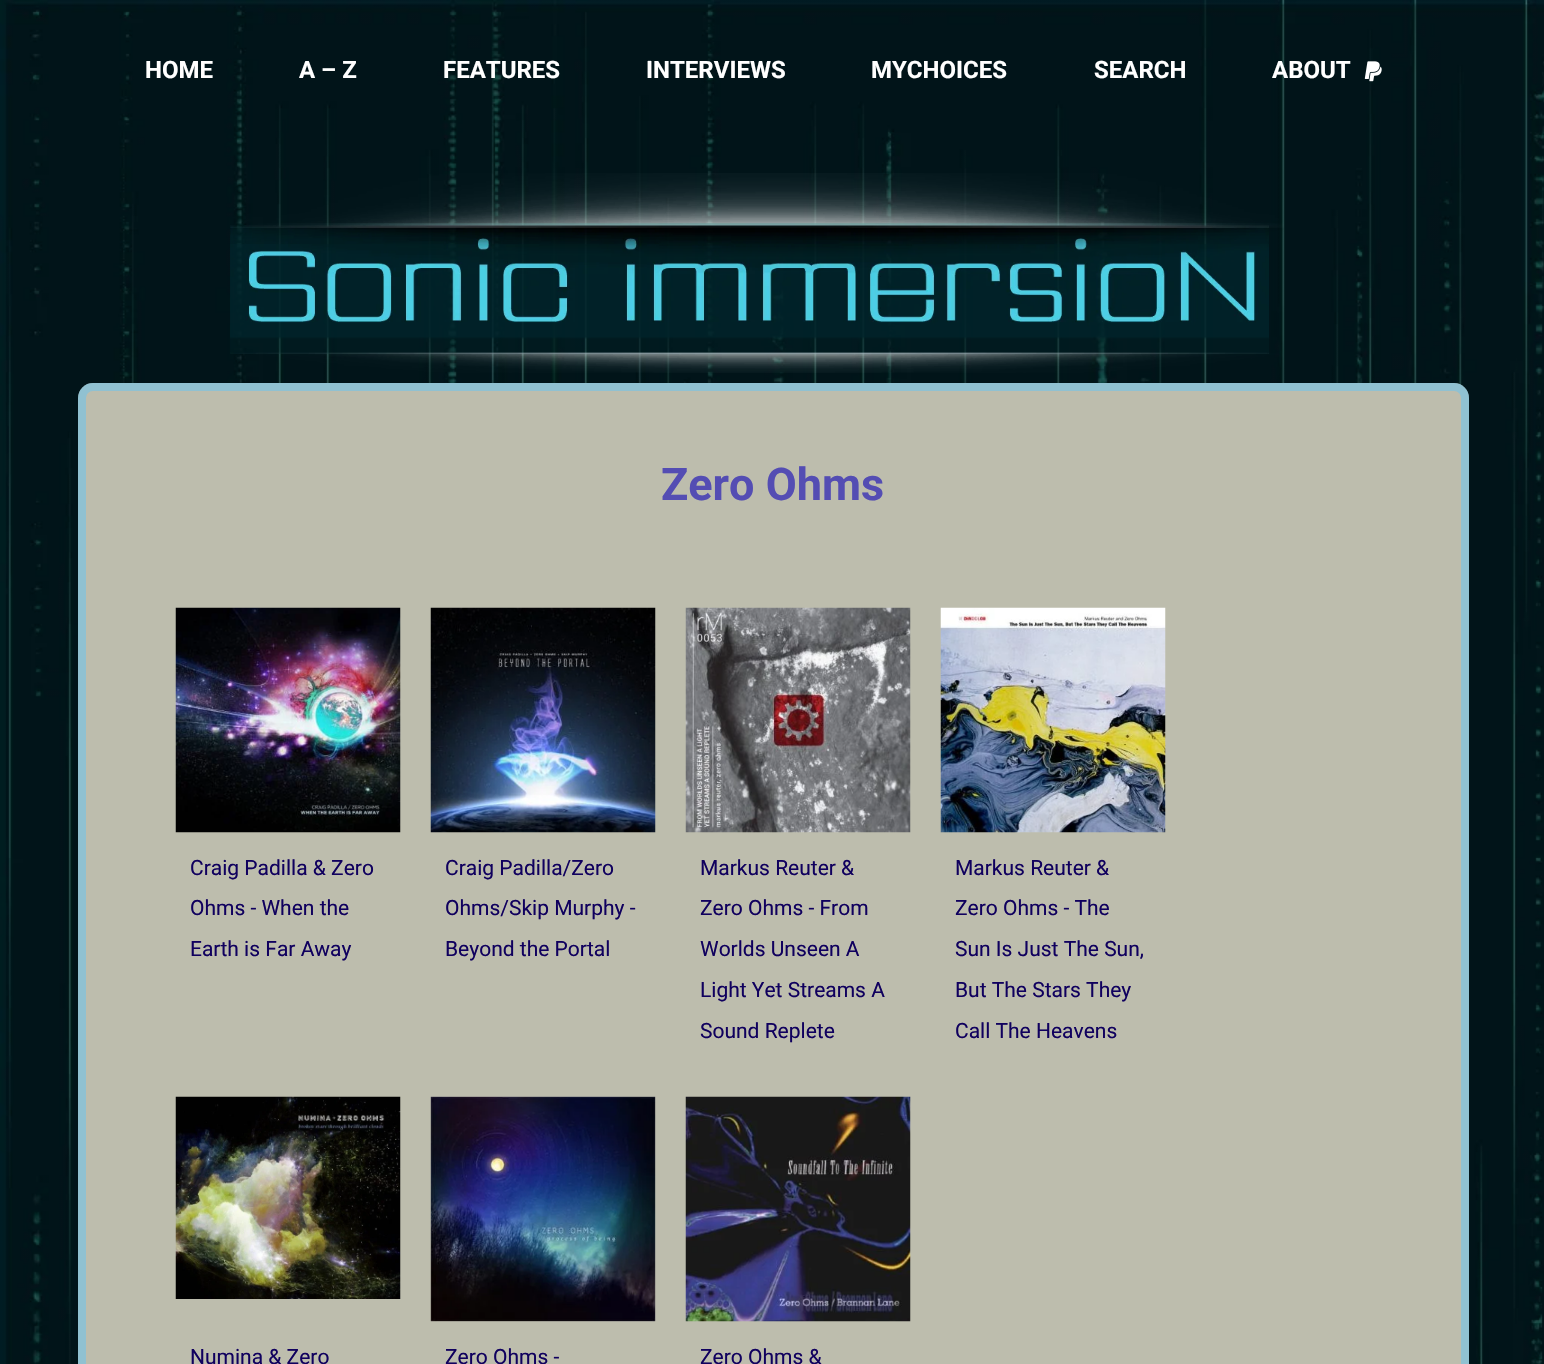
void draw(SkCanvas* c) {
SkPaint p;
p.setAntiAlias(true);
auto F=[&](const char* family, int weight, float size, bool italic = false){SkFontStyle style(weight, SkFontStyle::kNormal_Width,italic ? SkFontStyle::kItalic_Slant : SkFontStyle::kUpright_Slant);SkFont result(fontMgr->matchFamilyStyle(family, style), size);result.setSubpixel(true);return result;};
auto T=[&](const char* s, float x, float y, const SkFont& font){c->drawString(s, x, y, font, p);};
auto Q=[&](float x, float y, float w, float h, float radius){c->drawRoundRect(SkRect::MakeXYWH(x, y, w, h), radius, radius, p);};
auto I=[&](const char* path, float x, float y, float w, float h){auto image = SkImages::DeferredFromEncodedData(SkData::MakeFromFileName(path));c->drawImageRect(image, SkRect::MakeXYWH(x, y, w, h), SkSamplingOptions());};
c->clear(0xffffffff);
I("1.png",0,0,1544,1364);
auto f1 = F("Roboto",700,24);
p.setColor(0xffffffff);
T("HOME",145,78,f1);
T("A – Z",299,78,f1);
T("FEATURES",443,78,f1);
T("INTERVIEWS",646,78,f1);
T("MYCHOICES",871,78,f1);
T("SEARCH",1094,78,f1);
T("ABOUT",1272,78,f1);
I("2.png",1364,61,18,21);
I("3.png",230,173,1054,200);
p.setColor(0xffbdbdad);
Q(78,383,1391,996,15);
p.setStroke(true);
p.setStrokeWidth(8);
p.setColor(0x8566c3f2);
c->drawRoundRect(SkRect::MakeXYWH(82,387,1383,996),11,11,p);
auto f2 = F("Roboto",700,45);
p.setStroke(false);
p.setColor(0xff544db3);
T("Zero Ohms",661,500,f2);
I("4.png",175,607,226,226);
auto f3 = F("Roboto",400,21);
p.setColor(0xff10005e);
T("Craig Padilla & Zero",190,875,f3);
T("Ohms - When the",190,915,f3);
T("Earth is Far Away",190,956,f3);
I("5.png",430,607,226,226);
T("Craig Padilla/Zero",445,875,f3);
T("Ohms/Skip Murphy -",445,915,f3);
T("Beyond the Portal",445,956,f3);
I("6.png",685,607,226,226);
T("Markus Reuter &",700,875,f3);
T("Zero Ohms - From",700,915,f3);
T("Worlds Unseen A",700,956,f3);
T("Light Yet Streams A",700,997,f3);
T("Sound Replete",700,1038,f3);
I("7.png",940,607,226,226);
T("Markus Reuter &",955,875,f3);
T("Zero Ohms - The",955,915,f3);
T("Sun Is Just The Sun,",955,956,f3);
T("But The Stars They",955,997,f3);
T("Call The Heavens",955,1038,f3);
I("8.png",175,1096,226,203);
T("Numina & Zero",190,1364,f3);
I("9.png",430,1096,226,226);
T("Zero Ohms -",445,1364,f3);
I("10.png",685,1096,226,226);
T("Zero Ohms &",700,1364,f3);
}
